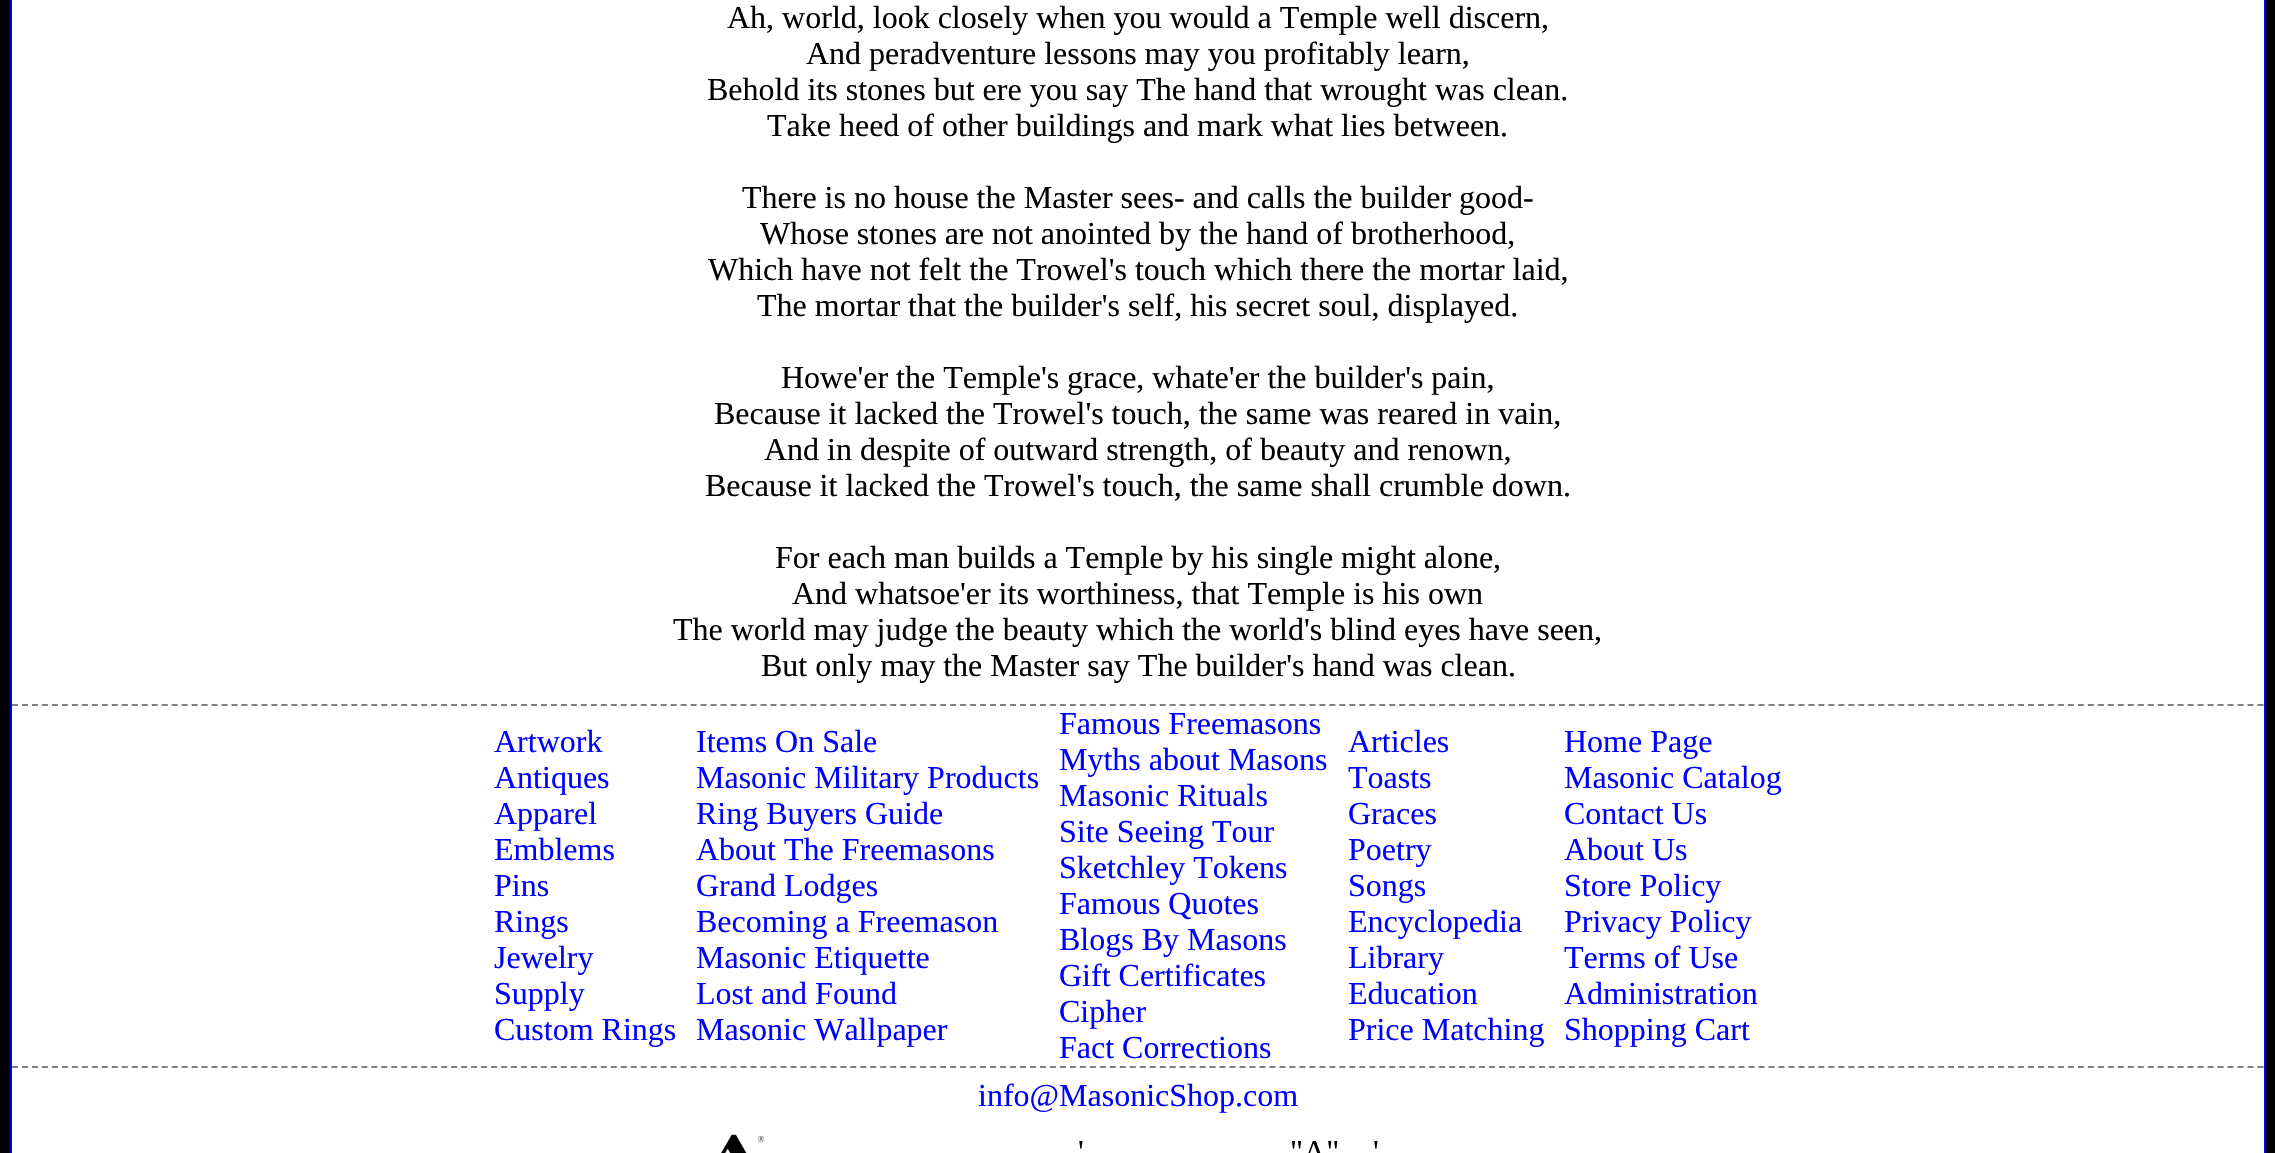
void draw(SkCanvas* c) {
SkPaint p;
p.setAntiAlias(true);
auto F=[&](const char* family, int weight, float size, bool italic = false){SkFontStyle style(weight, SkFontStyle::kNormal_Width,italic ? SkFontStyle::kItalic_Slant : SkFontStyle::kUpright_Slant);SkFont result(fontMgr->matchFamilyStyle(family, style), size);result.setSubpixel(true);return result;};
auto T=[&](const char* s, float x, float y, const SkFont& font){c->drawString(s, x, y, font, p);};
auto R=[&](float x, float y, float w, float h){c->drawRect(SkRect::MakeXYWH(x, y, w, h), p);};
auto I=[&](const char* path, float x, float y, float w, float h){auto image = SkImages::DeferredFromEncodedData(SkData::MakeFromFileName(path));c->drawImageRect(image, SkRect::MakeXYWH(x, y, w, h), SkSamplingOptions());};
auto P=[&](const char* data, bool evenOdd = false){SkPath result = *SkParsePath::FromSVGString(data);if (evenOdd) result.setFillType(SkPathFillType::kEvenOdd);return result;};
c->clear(0xff000000);
p.setColor(0xffffffff);
R(12,0,2252,1153);
p.setColor(0xff0000ff);
R(2264,0,2,1153);
R(10,0,2,1153);
auto f1 = F("Liberation Serif",400,32);
p.setColor(0xff000000);
T("Ah, world, look closely when you would a Temple well discern,",727,28,f1);
T("And peradventure lessons may you profitably learn,",806,64,f1);
T("Behold its stones but ere you say The hand that wrought was clean.",707,100,f1);
T("Take heed of other buildings and mark what lies between.",767,136,f1);
T("There is no house the Master sees- and calls the builder good-",742,208,f1);
T("Whose stones are not anointed by the hand of brotherhood,",760,244,f1);
T("Which have not felt the Trowel's touch which there the mortar laid,",708,280,f1);
T("The mortar that the builder's self, his secret soul, displayed.",757,316,f1);
T("Howe'er the Temple's grace, whate'er the builder's pain,",781,388,f1);
T("Because it lacked the Trowel's touch, the same was reared in vain,",714,424,f1);
T("And in despite of outward strength, of beauty and renown,",764,460,f1);
T("Because it lacked the Trowel's touch, the same shall crumble down.",705,496,f1);
T("For each man builds a Temple by his single might alone,",775,568,f1);
T("And whatsoe'er its worthiness, that Temple is his own",792,604,f1);
T("The world may judge the beauty which the world's blind eyes have seen,",673,640,f1);
T("But only may the Master say The builder's hand was clean.",761,676,f1);
p.setStroke(true);
p.setStrokeWidth(2);
p.setColor(0xff808080);
p.setPathEffect(SkDashPathEffect::Make({{6,3.98f}}, 0));
c->drawPath(P("M12 705h2252"),p);
p.setPathEffect(nullptr);
p.setStroke(false);
p.setColor(0xff0000ff);
T("Artwork",494,752,f1);
T("Antiques",494,788,f1);
T("Apparel",494,824,f1);
T("Emblems",494,860,f1);
T("Pins",494,896,f1);
T("Rings",494,932,f1);
T("Jewelry",494,968,f1);
T("Supply",494,1004,f1);
T("Custom Rings",494,1040,f1);
T("Items On Sale",696,752,f1);
T("Masonic Military Products",696,788,f1);
T("Ring Buyers Guide",696,824,f1);
T("About The Freemasons",696,860,f1);
T("Grand Lodges",696,896,f1);
T("Becoming a Freemason",696,932,f1);
T("Masonic Etiquette",696,968,f1);
T("Lost and Found",696,1004,f1);
T("Masonic Wallpaper",696,1040,f1);
T("Famous Freemasons",1059,734,f1);
T("Myths about Masons",1059,770,f1);
T("Masonic Rituals",1059,806,f1);
T("Site Seeing Tour",1059,842,f1);
T("Sketchley Tokens",1059,878,f1);
T("Famous Quotes",1059,914,f1);
T("Blogs By Masons",1059,950,f1);
T("Gift Certificates",1059,986,f1);
T("Cipher",1059,1022,f1);
T("Fact Corrections",1059,1058,f1);
T("Articles",1348,752,f1);
T("Toasts",1348,788,f1);
T("Graces",1348,824,f1);
T("Poetry",1348,860,f1);
T("Songs",1348,896,f1);
T("Encyclopedia",1348,932,f1);
T("Library",1348,968,f1);
T("Education",1348,1004,f1);
T("Price Matching",1348,1040,f1);
T("Home Page",1564,752,f1);
T("Masonic Catalog",1564,788,f1);
T("Contact Us",1564,824,f1);
T("About Us",1564,860,f1);
T("Store Policy",1564,896,f1);
T("Privacy Policy",1564,932,f1);
T("Terms of Use",1564,968,f1);
T("Administration",1564,1004,f1);
T("Shopping Cart",1564,1040,f1);
p.setStroke(true);
p.setColor(0xff808080);
p.setPathEffect(SkDashPathEffect::Make({{6,3.98f}}, 0));
c->drawPath(P("M12 1067h2252"),p);
p.setPathEffect(nullptr);
p.setStroke(false);
p.setColor(0xff0000ff);
T("info@MasonicShop.com",978,1106,f1);
I("1.png",721,1134,43,19);
p.setColor(0xff000000);
T("'",1078,1162,f1);
T("\"A\"",1290,1162,f1);
T("'",1373,1162,f1);
}
